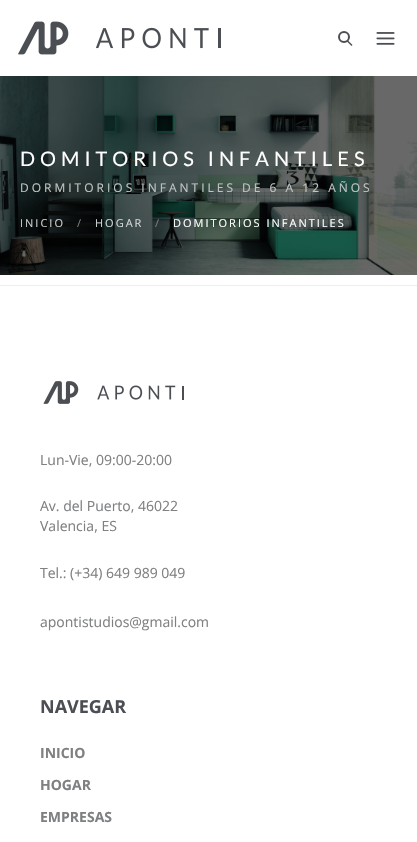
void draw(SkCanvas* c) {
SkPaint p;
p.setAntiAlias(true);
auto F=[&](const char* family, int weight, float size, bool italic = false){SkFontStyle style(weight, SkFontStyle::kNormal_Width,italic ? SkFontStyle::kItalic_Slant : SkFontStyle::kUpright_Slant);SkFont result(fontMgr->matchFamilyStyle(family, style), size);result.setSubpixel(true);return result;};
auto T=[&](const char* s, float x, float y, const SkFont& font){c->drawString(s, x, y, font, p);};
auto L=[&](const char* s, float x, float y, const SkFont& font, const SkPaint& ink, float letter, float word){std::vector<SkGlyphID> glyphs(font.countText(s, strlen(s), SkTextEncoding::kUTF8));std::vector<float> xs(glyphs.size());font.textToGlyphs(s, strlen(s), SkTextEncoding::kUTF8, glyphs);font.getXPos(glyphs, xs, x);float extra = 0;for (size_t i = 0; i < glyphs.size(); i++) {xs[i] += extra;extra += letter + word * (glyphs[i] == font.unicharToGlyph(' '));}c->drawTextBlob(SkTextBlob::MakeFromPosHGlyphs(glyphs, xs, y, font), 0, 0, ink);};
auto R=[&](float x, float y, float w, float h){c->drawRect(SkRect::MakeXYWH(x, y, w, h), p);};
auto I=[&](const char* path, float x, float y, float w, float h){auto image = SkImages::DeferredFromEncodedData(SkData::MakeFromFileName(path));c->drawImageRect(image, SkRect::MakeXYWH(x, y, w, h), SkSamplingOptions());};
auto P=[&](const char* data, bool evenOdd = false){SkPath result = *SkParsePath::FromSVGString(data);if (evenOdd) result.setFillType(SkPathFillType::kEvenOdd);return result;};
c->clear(0xffffffff);
I("1.png",18,21,203,34);
I("2.png",376,32,19,13);
p.setStroke(true);
p.setStrokeWidth(2);
p.setColor(0xff4b4e53);
c->drawCircle(344,37,5,p);
p.setStroke(false);
c->drawPath(P("M347.5 40l5 5l-1 1l-5-5z"),p);
I("3.png",0,76,417,199);
auto f1 = F("Lato",400,20);
p.setColor(0xffffffff);
L("DOMITORIOS INFANTILES",20,166,f1,p,5,0);
auto f2 = F("Open Sans",400,12);
p.setColor(0xffc0c5c4);
L("DORMITORIOS INFANTILES DE 6 A 12 AÑOS",20,192,f2,p,3,0);
auto f3 = F("Open Sans",400,11);
p.setColor(0xffcecfcf);
L("INICIO",20,227,f3,p,2,0);
p.setColor(0xff7e8082);
L("/",77,227,f3,p,2,0);
p.setColor(0xffd4d7d7);
L("HOGAR",95,227,f3,p,2,0);
p.setColor(0xff7e8082);
L("/",155,227,f3,p,2,0);
p.setColor(0xffffffff);
L("DOMITORIOS INFANTILES",173,227,f3,p,2,0);
p.setColor(0xffeeeeee);
R(0,285,417,1);
I("4.png",43,381,141,23);
auto f4 = F("Open Sans",400,14);
p.setColor(0xff7e8082);
T("Lun-Vie, 09:00-20:00",40,465,f4);
T("Av. del Puerto, 46022",40,511,f4);
T("Valencia, ES",40,531,f4);
T("Tel.: (+34) 649 989 049",40,578,f4);
T("apontistudios@gmail.com",40,627,f4);
auto f5 = F("Open Sans",700,18);
p.setColor(0xff4b4e53);
T("NAVEGAR",40,713,f5);
auto f6 = F("Open Sans",700,14);
p.setColor(0xff7e8082);
T("INICIO",40,758,f6);
T("HOGAR",40,790,f6);
T("EMPRESAS",40,822,f6);
}
